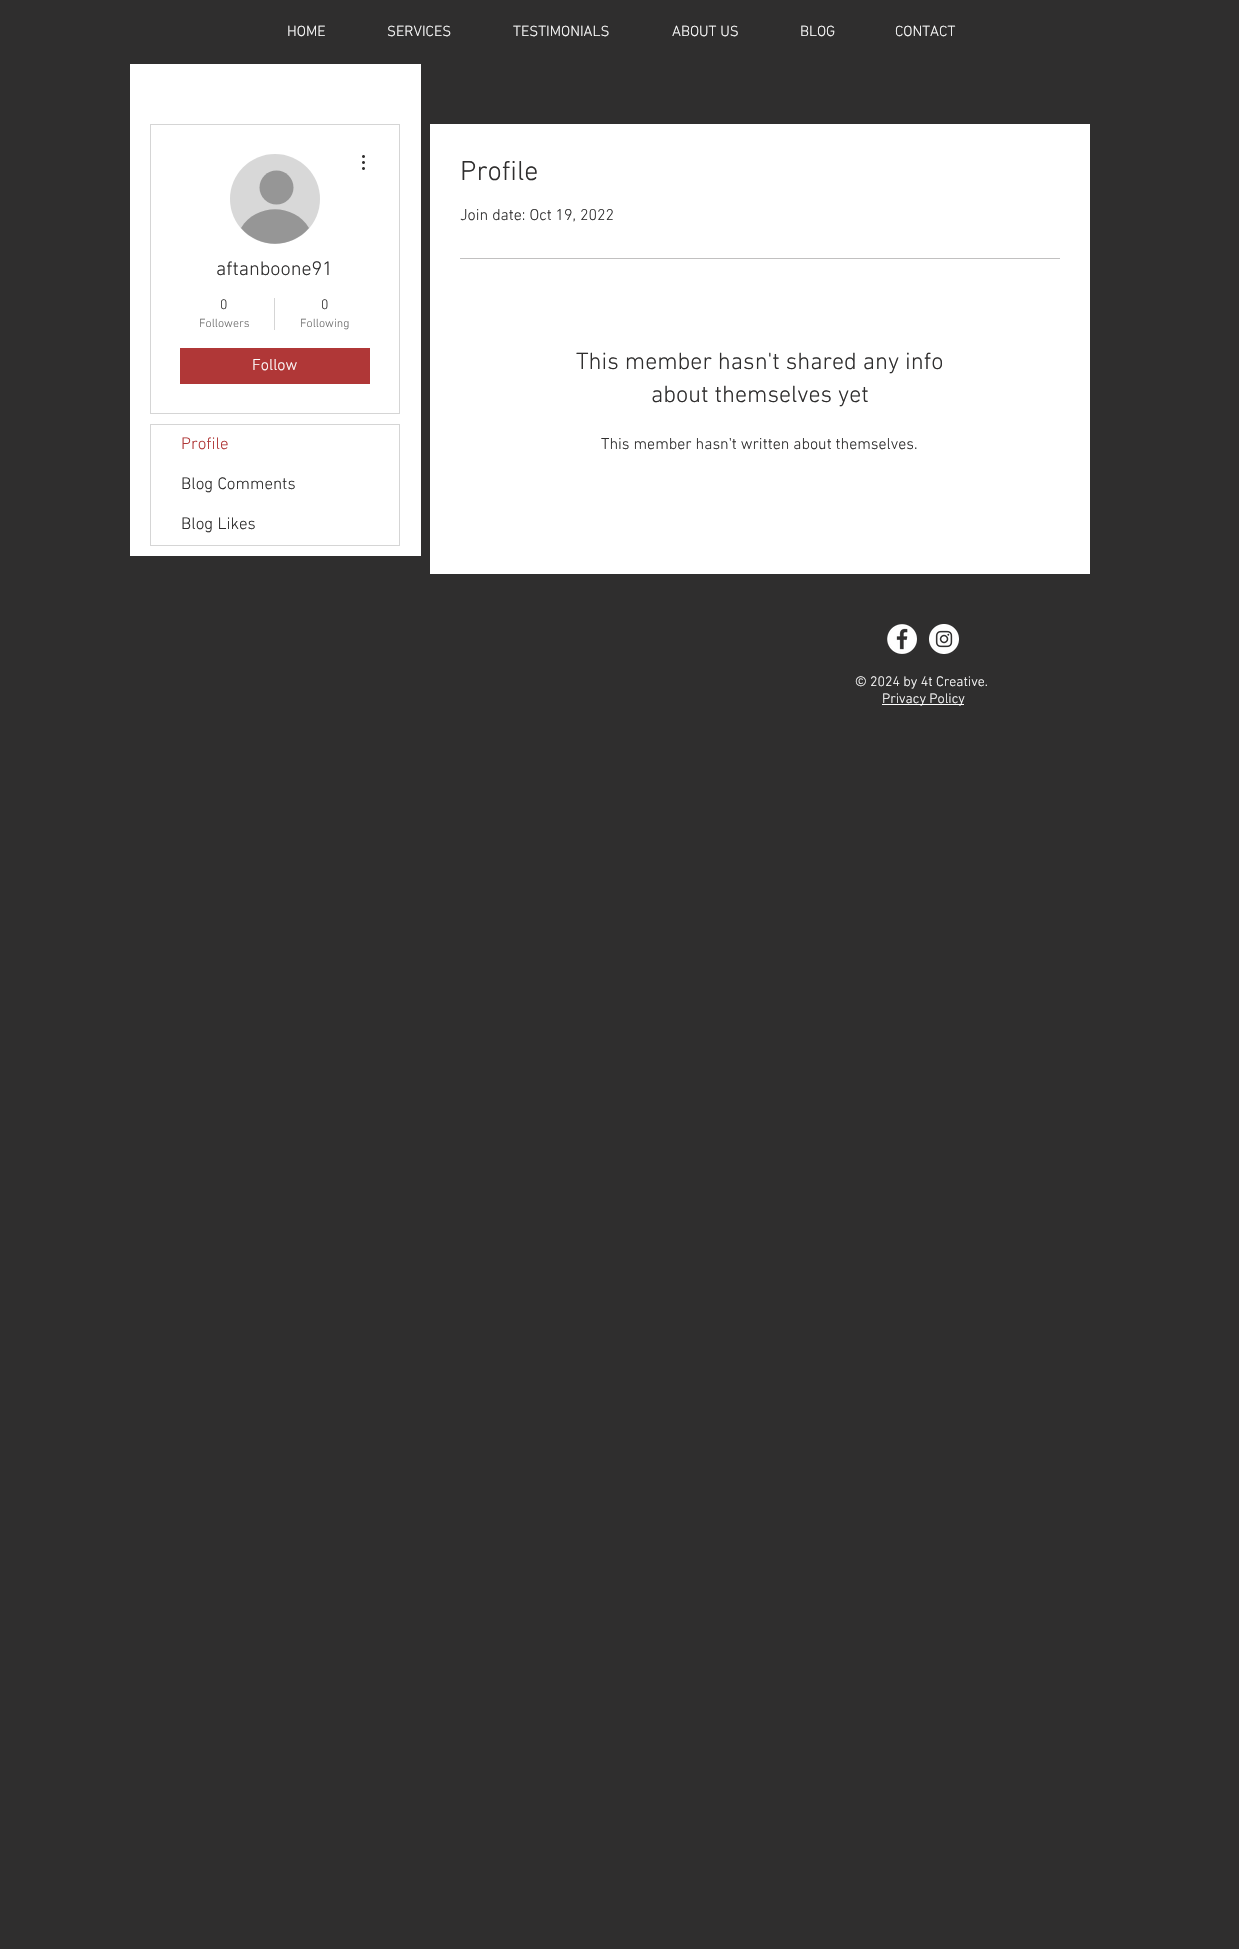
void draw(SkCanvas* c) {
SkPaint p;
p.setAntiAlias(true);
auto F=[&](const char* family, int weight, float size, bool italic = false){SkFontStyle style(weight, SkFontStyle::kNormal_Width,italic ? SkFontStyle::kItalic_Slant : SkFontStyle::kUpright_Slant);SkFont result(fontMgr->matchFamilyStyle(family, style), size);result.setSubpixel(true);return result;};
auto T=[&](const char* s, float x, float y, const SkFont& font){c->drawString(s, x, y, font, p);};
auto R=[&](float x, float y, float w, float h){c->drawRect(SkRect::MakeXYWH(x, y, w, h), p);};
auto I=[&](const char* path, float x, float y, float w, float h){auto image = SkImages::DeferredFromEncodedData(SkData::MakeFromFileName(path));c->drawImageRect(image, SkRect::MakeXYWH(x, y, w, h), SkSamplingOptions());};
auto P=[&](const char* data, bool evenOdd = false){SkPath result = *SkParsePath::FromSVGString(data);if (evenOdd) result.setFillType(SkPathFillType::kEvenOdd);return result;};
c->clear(0xff2f2e2e);
auto f1 = F("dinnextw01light",300,15);
p.setColor(0xffffffff);
T("HOME",287,36,f1);
T("SERVICES",387,36,f1);
T("TESTIMONIALS",513,36,f1);
T("ABOUT US",672,36,f1);
T("BLOG",800,36,f1);
T("CONTACT",895,36,f1);
R(130,64,291,492);
p.setStroke(true);
p.setStrokeWidth(1);
p.setColor(0xffd5d5d5);
c->drawRect(SkRect::MakeXYWH(150.5,124.5,249,289),p);
p.setStroke(false);
p.setColor(0xffd8d8d8);
c->drawCircle(275,199,45,p);
p.setColor(0xff969696);
c->drawCircle(276.5,187.5,17,p);
c->drawPath(P("M309 228c-18 21-50 21-68 0c15-25 53-25 68 0z"),p);
I("1.png",362,155,3,15);
auto f2 = F("dinnextw01light",300,20);
p.setColor(0xff2f2e2e);
T("aftanboone91",216,275,f2);
auto f3 = F("dinnextw01light",300,14);
T("0",220,309,f3);
auto f4 = F("dinnextw01light",300,12);
p.setColor(0xff6d6d6d);
T("Followers",199,327,f4);
p.setColor(0xffd5d5d5);
R(274,298,1,32);
p.setColor(0xff2f2e2e);
T("0",321,309,f3);
p.setColor(0xff6d6d6d);
T("Following",300,327,f4);
p.setColor(0xffb03737);
R(180,348,190,36);
auto f5 = F("dinnextw01light",300,16);
p.setColor(0xffffffff);
T("Follow",252,370,f5);
p.setStroke(true);
p.setColor(0xffd5d5d5);
c->drawRect(SkRect::MakeXYWH(150.5,424.5,249,121),p);
auto f6 = F("dinnextw01light",300,17);
p.setStroke(false);
p.setColor(0xffb03737);
T("Profile",181,449,f6);
p.setColor(0xff2f2e2e);
T("Blog Comments",181,489,f6);
T("Blog Likes",181,529,f6);
p.setColor(0xffffffff);
R(430,124,660,450);
auto f7 = F("dinnextw01light",300,28);
p.setColor(0xff2f2e2e);
T("Profile",460,180,f7);
T("Join date: Oct 19, 2022",460,220,f5);
p.setColor(0xffc1c0c0);
R(460,258,600,1);
auto f8 = F("dinnextw01light",300,24);
p.setColor(0xff2f2e2e);
T("This member hasn't shared any info",576,369,f8);
T("about themselves yet",651,402,f8);
T("This member hasn't written about themselves.",601,449,f5);
I("2.png",887,624,30,30);
I("3.png",929,624,30,30);
p.setColor(0xffffffff);
T("© 2024 by 4t Creative.",855,686,f3);
R(882,704,82,1);
T("Privacy Policy",882,703,f3);
}
